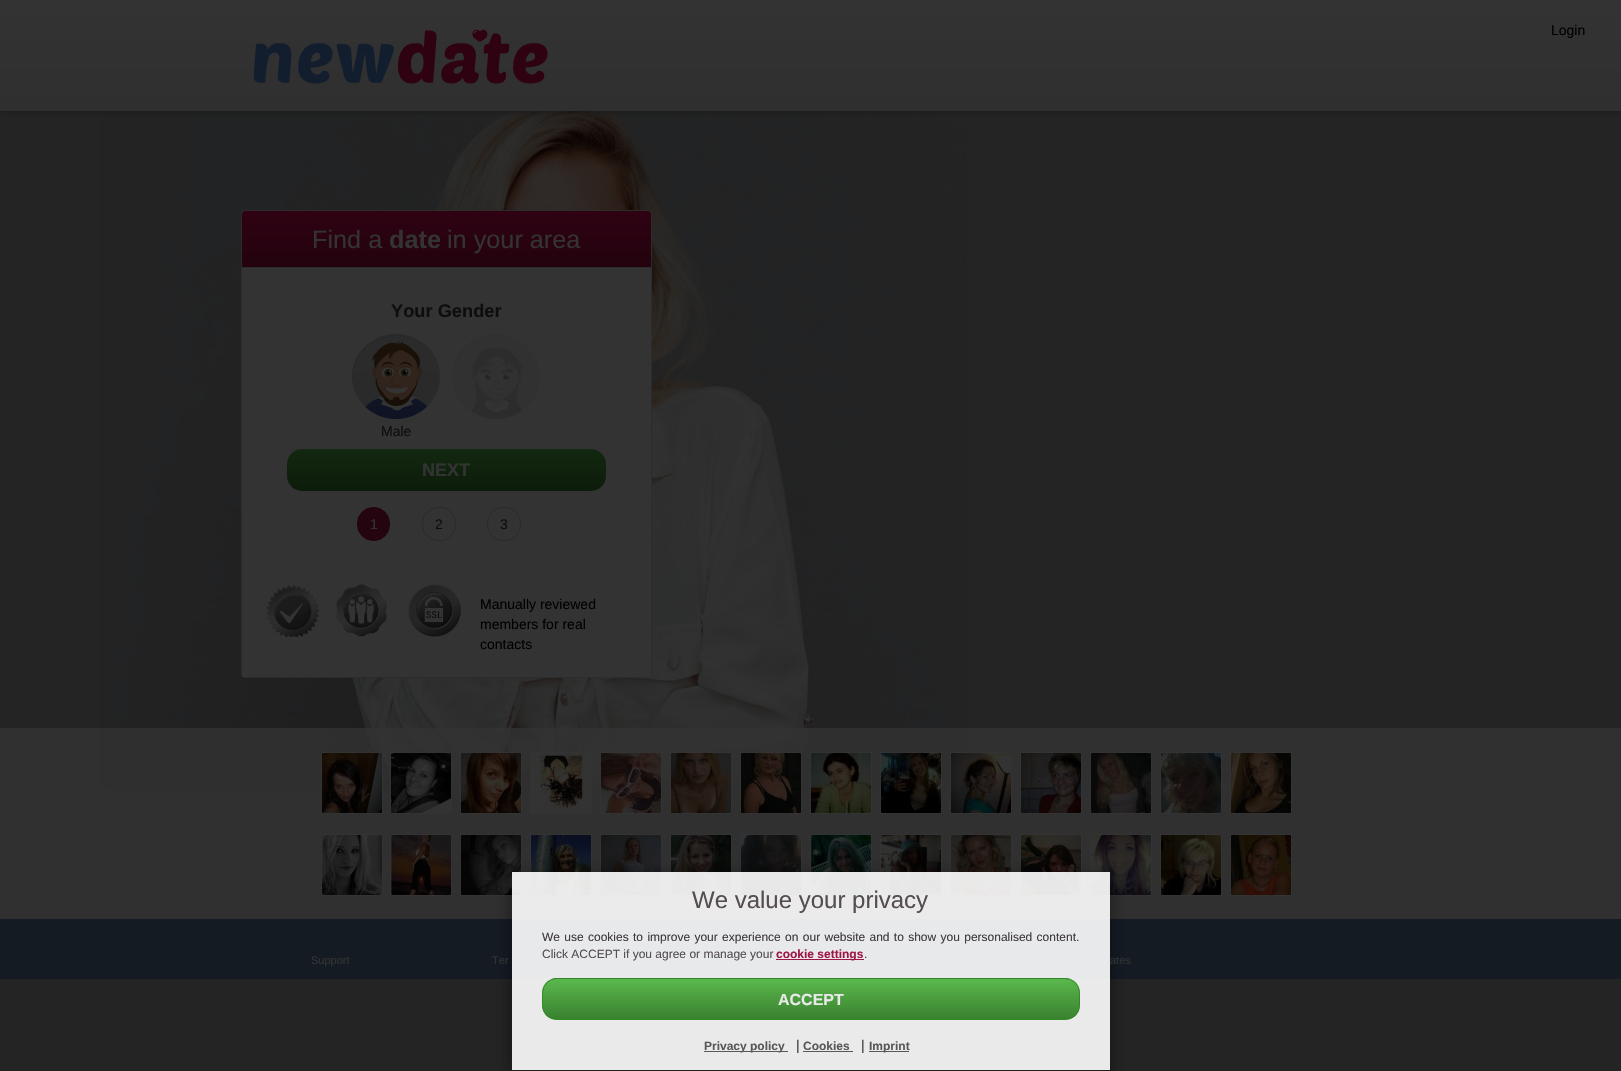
void draw(SkCanvas* c) {
SkPaint p;
p.setAntiAlias(true);
auto F=[&](const char* family, int weight, float size, bool italic = false){SkFontStyle style(weight, SkFontStyle::kNormal_Width,italic ? SkFontStyle::kItalic_Slant : SkFontStyle::kUpright_Slant);SkFont result(fontMgr->matchFamilyStyle(family, style), size);result.setSubpixel(true);return result;};
auto T=[&](const char* s, float x, float y, const SkFont& font){c->drawString(s, x, y, font, p);};
auto L=[&](const char* s, float x, float y, const SkFont& font, const SkPaint& ink, float letter, float word){std::vector<SkGlyphID> glyphs(font.countText(s, strlen(s), SkTextEncoding::kUTF8));std::vector<float> xs(glyphs.size());font.textToGlyphs(s, strlen(s), SkTextEncoding::kUTF8, glyphs);font.getXPos(glyphs, xs, x);float extra = 0;for (size_t i = 0; i < glyphs.size(); i++) {xs[i] += extra;extra += letter + word * (glyphs[i] == font.unicharToGlyph(' '));}c->drawTextBlob(SkTextBlob::MakeFromPosHGlyphs(glyphs, xs, y, font), 0, 0, ink);};
auto R=[&](float x, float y, float w, float h){c->drawRect(SkRect::MakeXYWH(x, y, w, h), p);};
auto Q=[&](float x, float y, float w, float h, float radius){c->drawRoundRect(SkRect::MakeXYWH(x, y, w, h), radius, radius, p);};
auto I=[&](const char* path, float x, float y, float w, float h){auto image = SkImages::DeferredFromEncodedData(SkData::MakeFromFileName(path));c->drawImageRect(image, SkRect::MakeXYWH(x, y, w, h), SkSamplingOptions());};
auto P=[&](const char* data, bool evenOdd = false){SkPath result = *SkParsePath::FromSVGString(data);if (evenOdd) result.setFillType(SkPathFillType::kEvenOdd);return result;};
c->clear(0xff242425);
I("2.png",100,111,866,683);
p.setColor(0xff131313);
p.setMaskFilter(SkMaskFilter::MakeBlur(kNormal_SkBlurStyle, 4.5));
c->drawRect(SkRect::MakeXYWH(1,-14,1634,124),p);
p.setMaskFilter(nullptr);
{
const SkColor colors[] = {0xff333333,0xff2f2f2f};
const float stops[] = {0,1};
const SkPoint ends[] = {{811,0}, {811,111}};
p.setShader(SkGradientShader::MakeLinear(ends, colors, stops, 2, SkTileMode::kClamp));
p.setAlpha(255);
}
R(0,0,1621,111);
I("1.png",253,29,295,55);
auto f1 = F("Liberation Sans",400,14);
p.setShader(nullptr);
p.setColor(0xff000000);
T("Login",1551,35,f1);
p.setStroke(true);
p.setStrokeWidth(1);
p.setColor(0xff2c2c2c);
c->drawRoundRect(SkRect::MakeXYWH(241.5,210.5,410,467),3.5,3.5,p);
p.setStroke(false);
{
const SkColor colors[] = {0xff2f0212,0xff23020e};
const float stops[] = {0,1};
const SkPoint ends[] = {{447,211}, {447,267}};
p.setShader(SkGradientShader::MakeLinear(ends, colors, stops, 2, SkTileMode::kClamp));
p.setAlpha(255);
}
c->drawPath(P("M245 211h403c1.5 0 3 1.5 3 3v53h-409v-53c0-1.5 1.5-3 3-3z"),p);
p.setShader(nullptr);
p.setColor(0xff2c2c2c);
R(242,267,409,1);
auto f2 = F("Liberation Sans",400,25.25);
p.setColor(0xff333333);
T("Find a",312,248,f2);
auto f3 = F("Liberation Sans",700,25.25);
T("date",389,248,f3);
T("in your area",447,248,f2);
R(242,268,409,409);
auto f4 = F("Liberation Sans",700,18.25);
p.setColor(0xff0e0c0d);
T("Your Gender",391,317,f4);
I("3.png",452,334,88,85);
I("4.png",352,334,88,85);
T("Male",381,436,f1);
{
const SkColor colors[] = {0xff132810,0xff0c1c0a};
const float stops[] = {0,1};
const SkPoint ends[] = {{447,449}, {447,491}};
p.setShader(SkGradientShader::MakeLinear(ends, colors, stops, 2, SkTileMode::kClamp));
p.setAlpha(255);
}
Q(287,449,319,42,15);
auto f5 = F("Liberation Sans",700,18);
p.setShader(nullptr);
p.setColor(0xff333333);
T("NEXT",422,476,f5);
p.setColor(0xff23040f);
c->drawRoundRect(SkRect::MakeXYWH(357.5,507.5,32,33),15.5,15.5,p);
p.setStroke(true);
c->drawRoundRect(SkRect::MakeXYWH(357.5,507.5,32,33),15.5,15.5,p);
p.setStroke(false);
p.setColor(0xff333333);
T("1",370,529,f1);
p.setStroke(true);
p.setColor(0xff292929);
c->drawRoundRect(SkRect::MakeXYWH(422.5,507.5,33,33),15.5,15.5,p);
p.setStroke(false);
p.setColor(0xff0e0c0d);
T("2",435,529,f1);
p.setStroke(true);
p.setColor(0xff292929);
c->drawRoundRect(SkRect::MakeXYWH(487.5,507.5,33,33),15.5,15.5,p);
p.setStroke(false);
p.setColor(0xff0e0c0d);
T("3",500,529,f1);
I("5.png",266,585,53,52);
I("6.png",336,584,51,53);
I("7.png",408,584,53,53);
p.setColor(0xff000000);
T("Manually reviewed",480,609,f1);
T("members for real",480,629,f1);
T("contacts",480,649,f1);
p.setColor(0xcc323232);
R(0,728,1621,191);
p.setStroke(true);
p.setColor(0xff333333);
c->drawRoundRect(SkRect::MakeXYWH(321.5,752.5,61,61),1.5,1.5,p);
I("8.png",322,753,60,60);
c->drawRoundRect(SkRect::MakeXYWH(390.5,752.5,61,61),1.5,1.5,p);
I("9.png",391,753,60,60);
c->drawRoundRect(SkRect::MakeXYWH(460.5,752.5,61,61),1.5,1.5,p);
I("10.png",461,753,60,60);
c->drawRoundRect(SkRect::MakeXYWH(530.5,752.5,61,61),1.5,1.5,p);
I("11.png",531,753,60,60);
c->drawRoundRect(SkRect::MakeXYWH(600.5,752.5,61,61),1.5,1.5,p);
I("12.png",601,753,60,60);
c->drawRoundRect(SkRect::MakeXYWH(670.5,752.5,61,61),1.5,1.5,p);
I("13.png",671,753,60,60);
c->drawRoundRect(SkRect::MakeXYWH(740.5,752.5,61,61),1.5,1.5,p);
I("14.png",741,753,60,60);
c->drawRoundRect(SkRect::MakeXYWH(810.5,752.5,61,61),1.5,1.5,p);
I("15.png",811,753,60,60);
c->drawRoundRect(SkRect::MakeXYWH(880.5,752.5,61,61),1.5,1.5,p);
I("16.png",881,753,60,60);
c->drawRoundRect(SkRect::MakeXYWH(950.5,752.5,61,61),1.5,1.5,p);
I("17.png",951,753,60,60);
c->drawRoundRect(SkRect::MakeXYWH(1020.5,752.5,61,61),1.5,1.5,p);
I("18.png",1021,753,60,60);
c->drawRoundRect(SkRect::MakeXYWH(1090.5,752.5,61,61),1.5,1.5,p);
I("19.png",1091,753,60,60);
c->drawRoundRect(SkRect::MakeXYWH(1160.5,752.5,61,61),1.5,1.5,p);
I("20.png",1161,753,60,60);
c->drawRoundRect(SkRect::MakeXYWH(1230.5,752.5,61,61),1.5,1.5,p);
I("21.png",1231,753,60,60);
c->drawRoundRect(SkRect::MakeXYWH(321.5,834.5,61,61),1.5,1.5,p);
I("22.png",322,835,60,60);
c->drawRoundRect(SkRect::MakeXYWH(390.5,834.5,61,61),1.5,1.5,p);
I("23.png",391,835,60,60);
c->drawRoundRect(SkRect::MakeXYWH(460.5,834.5,61,61),1.5,1.5,p);
I("24.png",461,835,60,60);
c->drawRoundRect(SkRect::MakeXYWH(530.5,834.5,61,61),1.5,1.5,p);
I("25.png",531,835,60,60);
c->drawRoundRect(SkRect::MakeXYWH(600.5,834.5,61,61),1.5,1.5,p);
I("26.png",601,835,60,60);
c->drawRoundRect(SkRect::MakeXYWH(670.5,834.5,61,61),1.5,1.5,p);
I("27.png",671,835,60,60);
c->drawRoundRect(SkRect::MakeXYWH(740.5,834.5,61,61),1.5,1.5,p);
I("28.png",741,835,60,60);
c->drawRoundRect(SkRect::MakeXYWH(810.5,834.5,61,61),1.5,1.5,p);
I("29.png",811,835,60,60);
c->drawRoundRect(SkRect::MakeXYWH(880.5,834.5,61,61),1.5,1.5,p);
I("30.png",881,835,60,60);
c->drawRoundRect(SkRect::MakeXYWH(950.5,834.5,61,61),1.5,1.5,p);
I("31.png",951,835,60,60);
c->drawRoundRect(SkRect::MakeXYWH(1020.5,834.5,61,61),1.5,1.5,p);
I("32.png",1021,835,60,60);
c->drawRoundRect(SkRect::MakeXYWH(1090.5,834.5,61,61),1.5,1.5,p);
I("33.png",1091,835,60,60);
c->drawRoundRect(SkRect::MakeXYWH(1160.5,834.5,61,61),1.5,1.5,p);
I("34.png",1161,835,60,60);
c->drawRoundRect(SkRect::MakeXYWH(1230.5,834.5,61,61),1.5,1.5,p);
I("35.png",1231,835,60,60);
p.setStroke(false);
p.setColor(0xff141b23);
R(0,919,1621,60);
c->save();
c->clipPath(P("M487 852h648v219h-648zm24 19h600v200h-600z",true),true);
p.setColor(0x73000000);
p.setMaskFilter(SkMaskFilter::MakeBlur(kNormal_SkBlurStyle, 7.5));
c->drawRect(SkRect::MakeXYWH(511,876,600,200),p);
p.setMaskFilter(nullptr);
c->restore();
p.setColor(0xe6ffffff);
R(512,872,598,198);
auto f6 = F("Liberation Sans",400,11);
p.setColor(0xff333333);
T("ates",1110,964,f6);
p.setStroke(true);
p.setColor(0x2e000000);
c->drawRect(SkRect::MakeXYWH(511.5,871.5,599,199),p);
auto f7 = F("Liberation Sans",400,24);
p.setStroke(false);
p.setColor(0xff544d51);
T("We value your privacy",692,908,f7);
auto f8 = F("Liberation Sans",400,12);
p.setColor(0xff3e393d);
L("We use cookies to improve your experience on our website and to show you personalised content.",542,941,f8,p,0,1);
p.setColor(0xff544d51);
T("Click ACCEPT if you agree or manage your",542,958,f8);
p.setColor(0xff9e1646);
R(776,959,88,1);
auto f9 = F("Liberation Sans",700,12);
T("cookie settings",776,958,f9);
p.setColor(0xff3e393d);
T(".",864,958,f8);
c->save();
c->clipPath(P("M557 978h508c8.5 0 15 6.5 15 15v12c0 8.5-6.5 15-15 15h-508c-8.5 0-15-6.5-15-15v-12c0-8.5 6.5-15 15-15z"),true);
{
const SkColor colors[] = {0xff58b74c,0xff38802f};
const float stops[] = {0,1};
const SkPoint ends[] = {{811,939}, {811,979}};
p.setShader(SkGradientShader::MakeLinear(ends, colors, stops, 2, SkTileMode::kClamp));
p.setAlpha(255);
}
R(552,978,518,1);
{
const SkColor colors[] = {0xff5ab84d,0xff3a812f};
const float stops[] = {0,1};
const SkPoint ends[] = {{811,979}, {811,1019}};
p.setShader(SkGradientShader::MakeLinear(ends, colors, stops, 2, SkTileMode::kClamp));
p.setAlpha(255);
}
R(542,979,538,40);
{
const SkColor colors[] = {0xff5ab84d,0xff3a812f};
const float stops[] = {0,1};
const SkPoint ends[] = {{811,1019}, {811,1059}};
p.setShader(SkGradientShader::MakeLinear(ends, colors, stops, 2, SkTileMode::kClamp));
p.setAlpha(255);
}
R(552,1019,518,1);
c->restore();
p.setStroke(true);
p.setShader(nullptr);
p.setColor(0xe6328625);
c->drawRoundRect(SkRect::MakeXYWH(542.5,978.5,537,41),14.5,14.5,p);
auto f10 = F("Liberation Sans",700,16);
p.setStroke(false);
p.setColor(0xffe9e9e9);
T("ACCEPT",778,1005,f10);
p.setColor(0xff585858);
R(704,1051,84,1);
T("Privacy policy",704,1050,f9);
p.setColor(0xff3e393d);
T("|",796,1050,f1);
p.setColor(0xff585858);
T("Cookies",803,1050,f9);
R(803,1051,50,1);
p.setColor(0xff3e393d);
T("|",861,1050,f1);
p.setColor(0xff585858);
R(869,1051,40,1);
T("Imprint",869,1050,f9);
p.setColor(0xff333333);
T("Support",311,964,f6);
T("Ter",492,964,f6);
}
